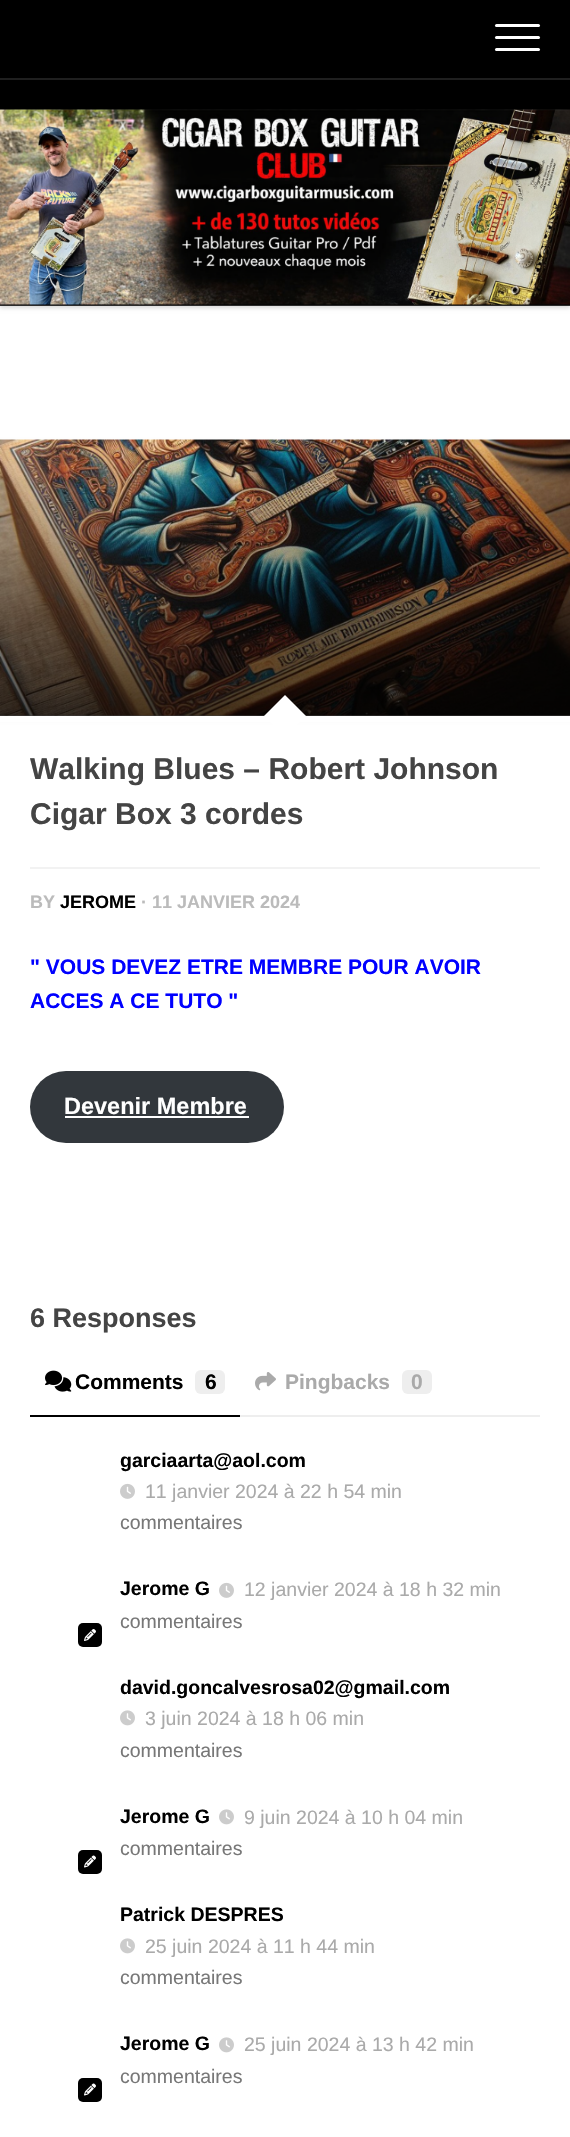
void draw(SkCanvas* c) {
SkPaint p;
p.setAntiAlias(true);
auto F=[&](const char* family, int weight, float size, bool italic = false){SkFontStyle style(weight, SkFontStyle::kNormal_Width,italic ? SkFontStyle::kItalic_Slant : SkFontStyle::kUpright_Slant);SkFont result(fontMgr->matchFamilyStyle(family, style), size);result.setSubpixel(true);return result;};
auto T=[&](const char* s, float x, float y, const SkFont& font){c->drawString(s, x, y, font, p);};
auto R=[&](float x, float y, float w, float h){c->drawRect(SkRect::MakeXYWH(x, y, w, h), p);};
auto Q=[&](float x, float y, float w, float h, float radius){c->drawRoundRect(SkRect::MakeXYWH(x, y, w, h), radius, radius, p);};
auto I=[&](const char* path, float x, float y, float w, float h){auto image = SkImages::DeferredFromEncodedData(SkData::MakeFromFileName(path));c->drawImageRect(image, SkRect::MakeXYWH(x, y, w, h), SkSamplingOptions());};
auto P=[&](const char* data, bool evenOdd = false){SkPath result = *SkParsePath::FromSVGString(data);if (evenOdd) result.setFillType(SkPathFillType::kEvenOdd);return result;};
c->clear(0xffffffff);
p.setColor(0xff000000);
R(0,0,570,78);
p.setColor(0xff1f1f1f);
R(0,78,570,2);
p.setColor(0xffffffff);
Q(495,24,45,3,1.5);
Q(495,36,45,3,1.5);
Q(495,48,45,3,1.5);
p.setColor(0xff000000);
R(0,80,570,225);
p.setColor(0xff333333);
R(0,305,570,1);
p.setColor(0x26000000);
p.setMaskFilter(SkMaskFilter::MakeBlur(kNormal_SkBlurStyle, 2));
c->drawRect(SkRect::MakeXYWH(0,113,570,195),p);
p.setMaskFilter(nullptr);
I("1.png",0,109,570,196);
p.setMaskFilter(SkMaskFilter::MakeBlur(kNormal_SkBlurStyle, 2));
c->drawRect(SkRect::MakeXYWH(0,443,570,276),p);
p.setMaskFilter(nullptr);
I("2.png",0,439,570,277);
{
const SkColor colors[] = {0x00000000,0xb3000000};
const float stops[] = {0,1};
const SkPoint ends[] = {{285,440}, {285,716}};
p.setShader(SkGradientShader::MakeLinear(ends, colors, stops, 2, SkTileMode::kClamp));
p.setAlpha(255);
}
R(0,449,570,267);
p.setShader(nullptr);
p.setColor(0xffffffff);
R(0,716,570,6);
c->drawPath(P("M285 695l21 21l-21 21l-21-21z"),p);
auto f1 = F("Liberation Sans",700,30);
p.setColor(0xff444444);
T("Walking Blues – Robert Johnson",30,779,f1);
T("Cigar Box 3 cordes",30,824,f1);
p.setColor(0xfff2f2f2);
R(30,867,510,2);
auto f2 = F("Liberation Sans",700,18);
p.setColor(0xffbbbbbb);
T("BY",30,908,f2);
p.setColor(0xff000000);
T("JEROME",60,908,f2);
p.setColor(0xffbbbbbb);
T("· 11 JANVIER 2024",141,908,f2);
auto f3 = F("Liberation Sans",700,21);
p.setColor(0xff0000ff);
T("\" VOUS DEVEZ ETRE MEMBRE POUR AVOIR",30,974,f3);
T("ACCES A CE TUTO \"",30,1008,f3);
p.setColor(0xff32373c);
Q(30,1071,254,72,36);
auto f4 = F("Liberation Sans",700,23.5);
p.setColor(0xffffffff);
T("Devenir Membre",64,1114,f4);
R(65,1116,184,2);
auto f5 = F("Liberation Sans",700,27);
p.setColor(0xff444444);
T("6 Responses",30,1327,f5);
p.setColor(0xffeeeeee);
R(240,1415,300,2);
p.setColor(0xff000000);
R(30,1415,210,2);
I("3.png",45,1370,27,22);
T("Comments",75,1389,f3);
p.setColor(0xffeeeeee);
Q(195,1370,30,24,6);
p.setColor(0xff000000);
T("6",205,1389,f3);
I("4.png",255,1372,21,19);
p.setColor(0xffaaaaaa);
T("Pingbacks",285,1389,f3);
p.setColor(0xffeeeeee);
Q(402,1370,30,24,6);
p.setColor(0xffaaaaaa);
T("0",411,1389,f3);
auto f6 = F("Liberation Sans",700,19.5);
p.setColor(0xff000000);
T("garciaarta@aol.com",120,1467,f6);
I("5.png",120,1483,15,16);
auto f7 = F("Liberation Sans",400,19.5);
p.setColor(0xffaaaaaa);
T("11 janvier 2024 à 22 h 54 min",145,1498,f7);
p.setColor(0xff777777);
T("commentaires",120,1529,f7);
p.setColor(0xff000000);
T("Jerome G",120,1595,f6);
I("5.png",219,1582,15,16);
p.setColor(0xffaaaaaa);
T("12 janvier 2024 à 18 h 32 min",244,1596,f7);
p.setColor(0xff777777);
T("commentaires",120,1628,f7);
p.setColor(0xff000000);
Q(78,1623,24,24,5);
I("6.png",84,1629,12,12);
T("david.goncalvesrosa02@gmail.com",120,1694,f6);
I("7.png",120,1710,15,16);
p.setColor(0xffaaaaaa);
T("3 juin 2024 à 18 h 06 min",145,1725,f7);
p.setColor(0xff777777);
T("commentaires",120,1757,f7);
p.setColor(0xff000000);
T("Jerome G",120,1823,f6);
I("7.png",219,1809,15,16);
p.setColor(0xffaaaaaa);
T("9 juin 2024 à 10 h 04 min",244,1824,f7);
p.setColor(0xff777777);
T("commentaires",120,1855,f7);
p.setColor(0xff000000);
Q(78,1850,24,24,5);
I("8.png",84,1855,12,13);
T("Patrick DESPRES",120,1921,f6);
I("7.png",120,1938,15,16);
p.setColor(0xffaaaaaa);
T("25 juin 2024 à 11 h 44 min",145,1953,f7);
p.setColor(0xff777777);
T("commentaires",120,1984,f7);
p.setColor(0xff000000);
T("Jerome G",120,2050,f6);
I("7.png",219,2037,15,16);
p.setColor(0xffaaaaaa);
T("25 juin 2024 à 13 h 42 min",244,2051,f7);
p.setColor(0xff777777);
T("commentaires",120,2083,f7);
p.setColor(0xff000000);
Q(78,2078,24,24,5);
I("8.png",84,2083,12,13);
}
